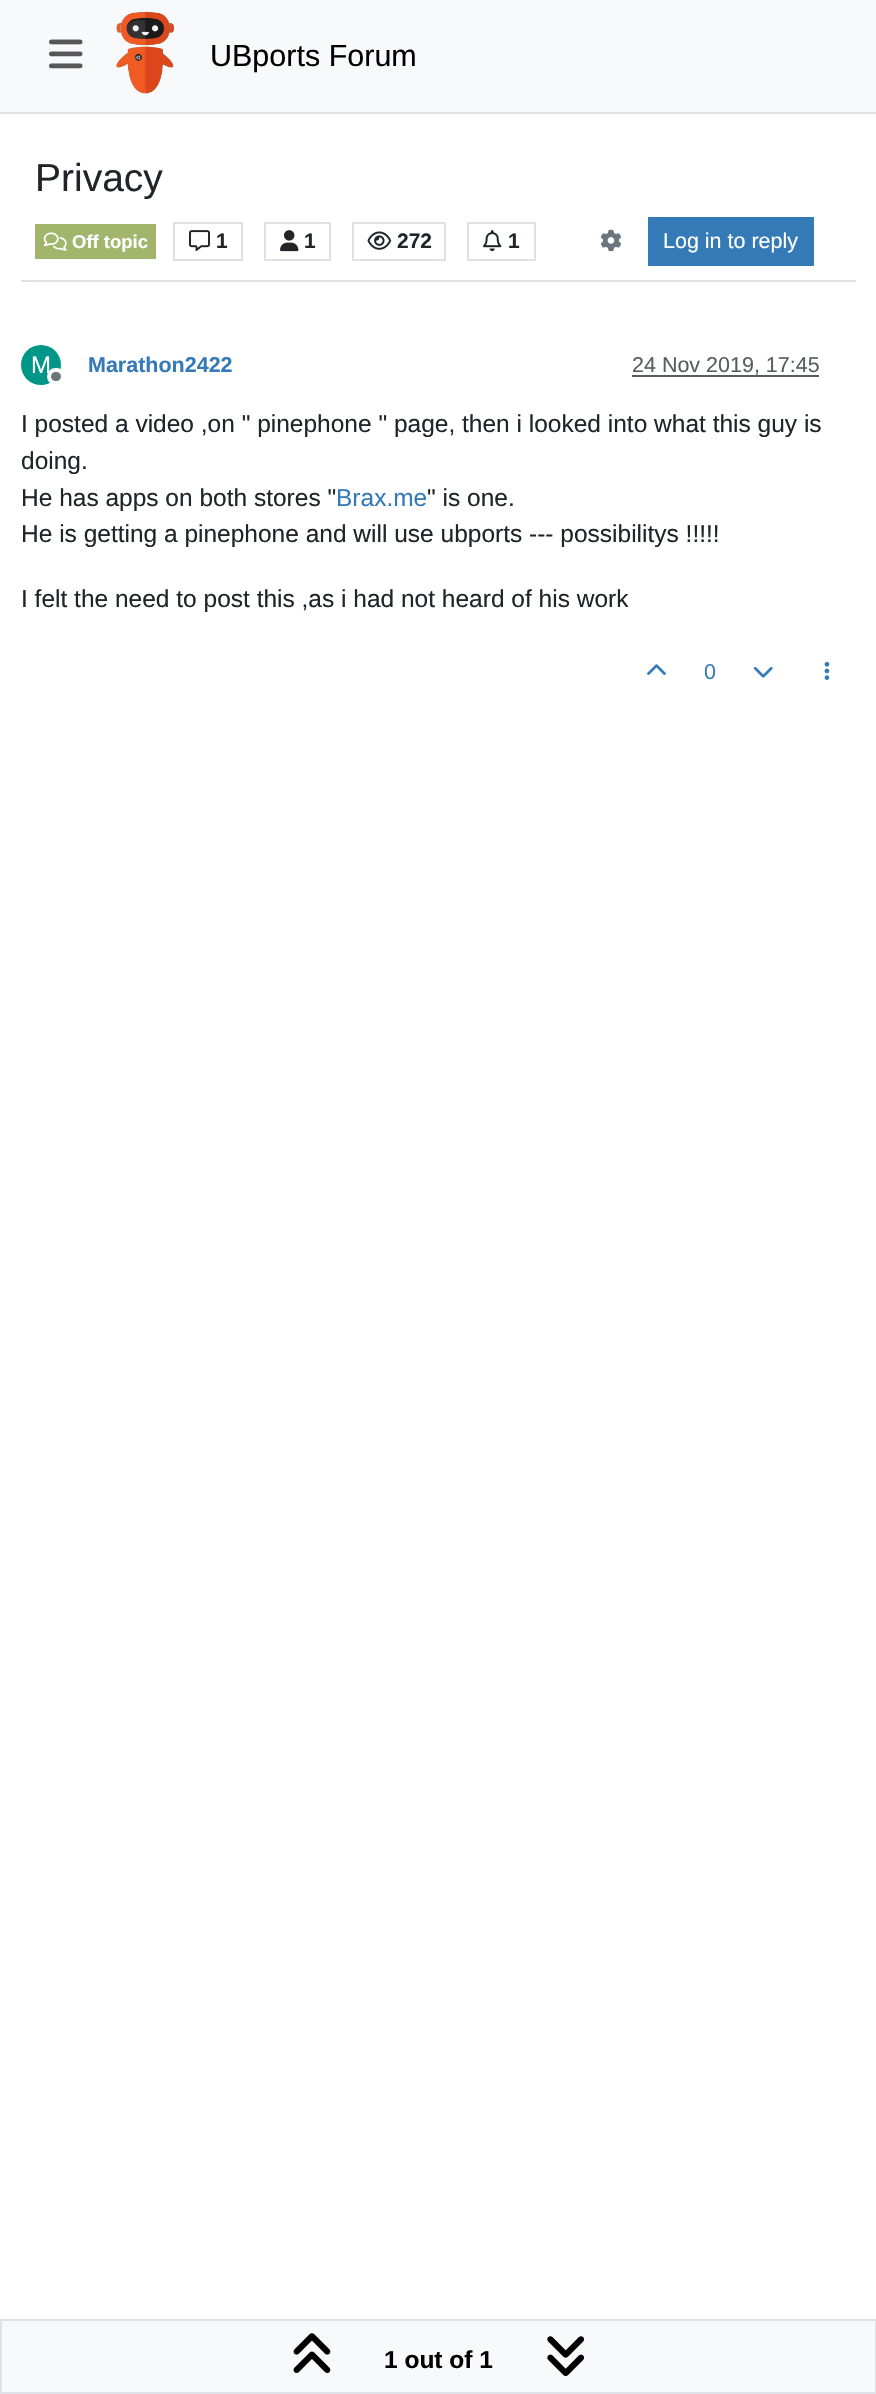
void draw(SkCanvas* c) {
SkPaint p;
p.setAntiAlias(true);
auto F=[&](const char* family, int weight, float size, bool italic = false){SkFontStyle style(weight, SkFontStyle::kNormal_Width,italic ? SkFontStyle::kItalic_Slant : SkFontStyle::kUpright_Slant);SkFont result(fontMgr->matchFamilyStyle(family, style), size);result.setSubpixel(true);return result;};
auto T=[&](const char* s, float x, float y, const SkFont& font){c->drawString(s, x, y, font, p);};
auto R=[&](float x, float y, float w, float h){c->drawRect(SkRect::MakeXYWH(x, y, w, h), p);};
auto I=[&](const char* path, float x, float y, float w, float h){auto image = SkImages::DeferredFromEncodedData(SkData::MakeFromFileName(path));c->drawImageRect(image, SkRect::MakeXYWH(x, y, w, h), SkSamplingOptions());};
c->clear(0xffffffff);
p.setColor(0xfff8f9fa);
R(0,0,876,112);
p.setColor(0xffdee2e6);
R(0,112,876,2);
I("1.png",49,39,34,30);
I("2.png",116,11,58,83);
auto f1 = F("Liberation Sans",400,30.5);
p.setColor(0xff000000);
T("UBports Forum",210,66,f1);
p.setColor(0xffdee2e6);
R(21,280,835,2);
auto f2 = F("Liberation Sans",400,39);
p.setColor(0xff212529);
T("Privacy",35,191,f2);
p.setColor(0xffa1b56c);
R(35,224,121,35);
I("3.png",43,232,24,19);
auto f3 = F("Liberation Sans",700,18.5);
p.setColor(0xffffffff);
T("Off topic",72,248,f3);
p.setStroke(true);
p.setStrokeWidth(2);
p.setColor(0xffdee2e6);
c->drawRect(SkRect::MakeXYWH(174,223,68,37),p);
I("4.png",189,230,21,22);
auto f4 = F("Liberation Sans",700,21);
p.setStroke(false);
p.setColor(0xff212529);
T("1",216,248,f4);
p.setStroke(true);
p.setColor(0xffdee2e6);
c->drawRect(SkRect::MakeXYWH(265,223,65,37),p);
I("5.png",280,230,19,22);
p.setStroke(false);
p.setColor(0xff212529);
T("1",304,248,f4);
p.setStroke(true);
p.setColor(0xffdee2e6);
c->drawRect(SkRect::MakeXYWH(353,223,92,37),p);
I("6.png",367,231,25,19);
p.setStroke(false);
p.setColor(0xff212529);
T("272",397,248,f4);
p.setStroke(true);
p.setColor(0xffdee2e6);
c->drawRect(SkRect::MakeXYWH(468,223,67,37),p);
I("7.png",483,230,19,22);
p.setStroke(false);
p.setColor(0xff212529);
T("1",508,248,f4);
I("8.png",600,229,21,23);
p.setColor(0xff337ab7);
R(648,217,166,49);
auto f5 = F("Liberation Sans",400,21.5);
p.setColor(0xffffffff);
T("Log in to reply",663,248,f5);
p.setColor(0xff009688);
c->drawCircle(41,365,20,p);
auto f6 = F("Liberation Sans",400,24);
p.setColor(0xffffffff);
T("M",31,373,f6);
p.setColor(0xff6c757d);
c->drawRoundRect(SkRect::MakeXYWH(49,370,14,13),6.5,6.5,p);
p.setStroke(true);
p.setStrokeWidth(4);
p.setColor(0xffffffff);
c->drawRoundRect(SkRect::MakeXYWH(49,370,14,13),6.5,6.5,p);
auto f7 = F("Liberation Sans",700,21.5);
p.setStroke(false);
p.setColor(0xff337ab7);
T("Marathon2422",88,372,f7);
p.setColor(0xff595c5f);
T("24 Nov 2019, 17:45",632,372,f5);
R(632,375,187,2);
auto f8 = F("Liberation Sans",400,24.5);
p.setColor(0xff212529);
T("I posted a video ,on \" pinephone \" page, then i looked into what this guy is",21,432,f8);
T("doing.",21,469,f8);
T("He has apps on both stores \"",21,506,f8);
p.setColor(0xff337ab7);
T("Brax.me",336,506,f8);
p.setColor(0xff212529);
T("\" is one.",427,506,f8);
T("He is getting a pinephone and will use ubports --- possibilitys !!!!!",21,542,f8);
T("I felt the need to post this ,as i had not heard of his work",21,607,f8);
I("9.png",647,664,19,11);
p.setColor(0xff337ab7);
T("0",704,679,f5);
I("10.png",753,667,20,11);
I("11.png",824,661,6,19);
p.setColor(0xfff8f9fa);
c->drawRect(SkRect::MakeXYWH(1,2320,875,73),p);
p.setStroke(true);
p.setStrokeWidth(2);
p.setColor(0xffdee2e6);
c->drawRect(SkRect::MakeXYWH(1,2320,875,73),p);
I("12.png",293,2333,38,40);
auto f9 = F("Liberation Sans",700,24.5);
p.setStroke(false);
p.setColor(0xff000000);
T("1 out of 1",384,2368,f9);
I("13.png",547,2336,37,40);
}
